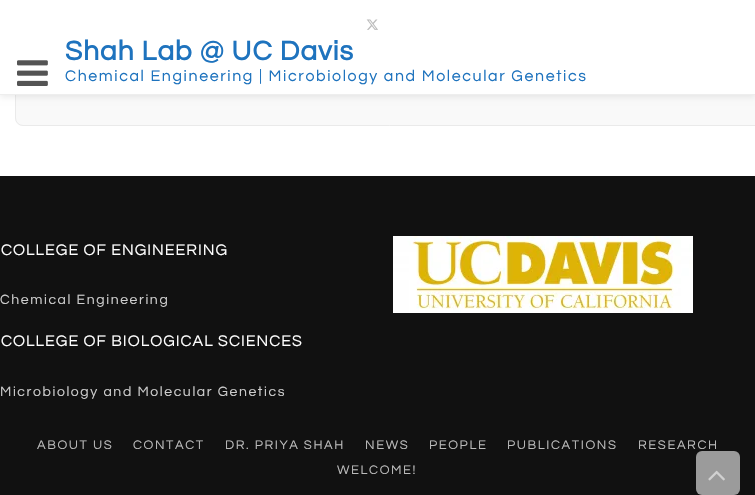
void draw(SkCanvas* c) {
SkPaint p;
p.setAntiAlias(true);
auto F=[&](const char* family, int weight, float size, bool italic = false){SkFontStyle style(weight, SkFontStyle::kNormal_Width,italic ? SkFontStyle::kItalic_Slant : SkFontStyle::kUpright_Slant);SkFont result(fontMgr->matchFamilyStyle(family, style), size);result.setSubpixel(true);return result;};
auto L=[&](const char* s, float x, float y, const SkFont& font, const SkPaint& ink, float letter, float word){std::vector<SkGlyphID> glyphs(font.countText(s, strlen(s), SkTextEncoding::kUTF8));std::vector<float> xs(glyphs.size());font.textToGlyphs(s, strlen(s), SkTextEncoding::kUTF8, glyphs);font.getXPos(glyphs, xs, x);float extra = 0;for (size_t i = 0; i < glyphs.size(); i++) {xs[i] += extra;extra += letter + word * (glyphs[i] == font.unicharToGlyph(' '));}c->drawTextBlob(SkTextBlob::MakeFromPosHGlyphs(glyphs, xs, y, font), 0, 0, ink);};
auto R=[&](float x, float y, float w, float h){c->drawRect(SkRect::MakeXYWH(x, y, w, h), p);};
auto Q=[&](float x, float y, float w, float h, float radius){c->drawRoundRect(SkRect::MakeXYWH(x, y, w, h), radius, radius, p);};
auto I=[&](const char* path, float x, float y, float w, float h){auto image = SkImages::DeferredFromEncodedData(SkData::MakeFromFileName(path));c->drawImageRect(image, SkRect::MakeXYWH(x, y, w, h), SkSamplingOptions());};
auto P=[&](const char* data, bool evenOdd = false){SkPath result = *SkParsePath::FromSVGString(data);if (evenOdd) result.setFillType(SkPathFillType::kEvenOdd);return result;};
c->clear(0xffffffff);
p.setColor(0xfff9f9f9);
c->drawPath(P("M23 64h732v62h-732c-4.5 0-8-3.5-8-8v-46c0-4.5 3.5-8 8-8z"),p);
p.setStroke(true);
p.setStrokeWidth(1);
p.setColor(0xffeaeaea);
c->drawRoundRect(SkRect::MakeXYWH(15.5,64.5,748,61),7.5,7.5,p);
p.setStroke(false);
p.setColor(0x14000000);
p.setMaskFilter(SkMaskFilter::MakeBlur(kNormal_SkBlurStyle, 3));
c->drawRect(SkRect::MakeXYWH(0,2,755,95),p);
p.setMaskFilter(nullptr);
p.setColor(0xffffffff);
R(0,0,755,94);
p.setColor(0xffeeeeee);
R(0,94,755,1);
I("1.png",366,19,12,11);
I("2.png",17,60,31,26);
auto f1 = F("Questrial",700,28);
p.setColor(0xff1e73be);
L("Shah Lab @ UC Davis",65,60,f1,p,1,0);
auto f2 = F("Questrial",400,16);
L("Chemical Engineering | Microbiology and Molecular Genetics",65,81,f2,p,1.6,0);
p.setColor(0xff111111);
R(0,176,755,319);
p.setColor(0xffffffff);
L("COLLEGE OF ENGINEERING",1,255,f2,p,1,0);
auto f3 = F("Questrial",400,14);
p.setColor(0xffcccccc);
L("Chemical Engineering",0,304,f3,p,1.6,0);
I("3.png",393,236,300,77);
p.setColor(0xffffffff);
L("COLLEGE OF BIOLOGICAL SCIENCES",1,346,f2,p,1,0);
p.setColor(0xffcccccc);
L("Microbiology and Molecular Genetics",0,396,f3,p,1.6,0);
auto f4 = F("Questrial",400,13);
p.setColor(0xffbbbbbb);
L("ABOUT US",37,449,f4,p,1.6,0);
L("CONTACT",133,449,f4,p,1.6,0);
L("DR. PRIYA SHAH",225,449,f4,p,1.6,0);
L("NEWS",365,449,f4,p,1.6,0);
L("PEOPLE",429,449,f4,p,1.6,0);
L("PUBLICATIONS",507,449,f4,p,1.6,0);
L("RESEARCH",638,449,f4,p,1.6,0);
L("WELCOME!",337,474,f4,p,1.6,0);
p.setColor(0xff9b9b9b);
Q(696,451,44,44,6);
I("4.png",708,470,17,11);
}
